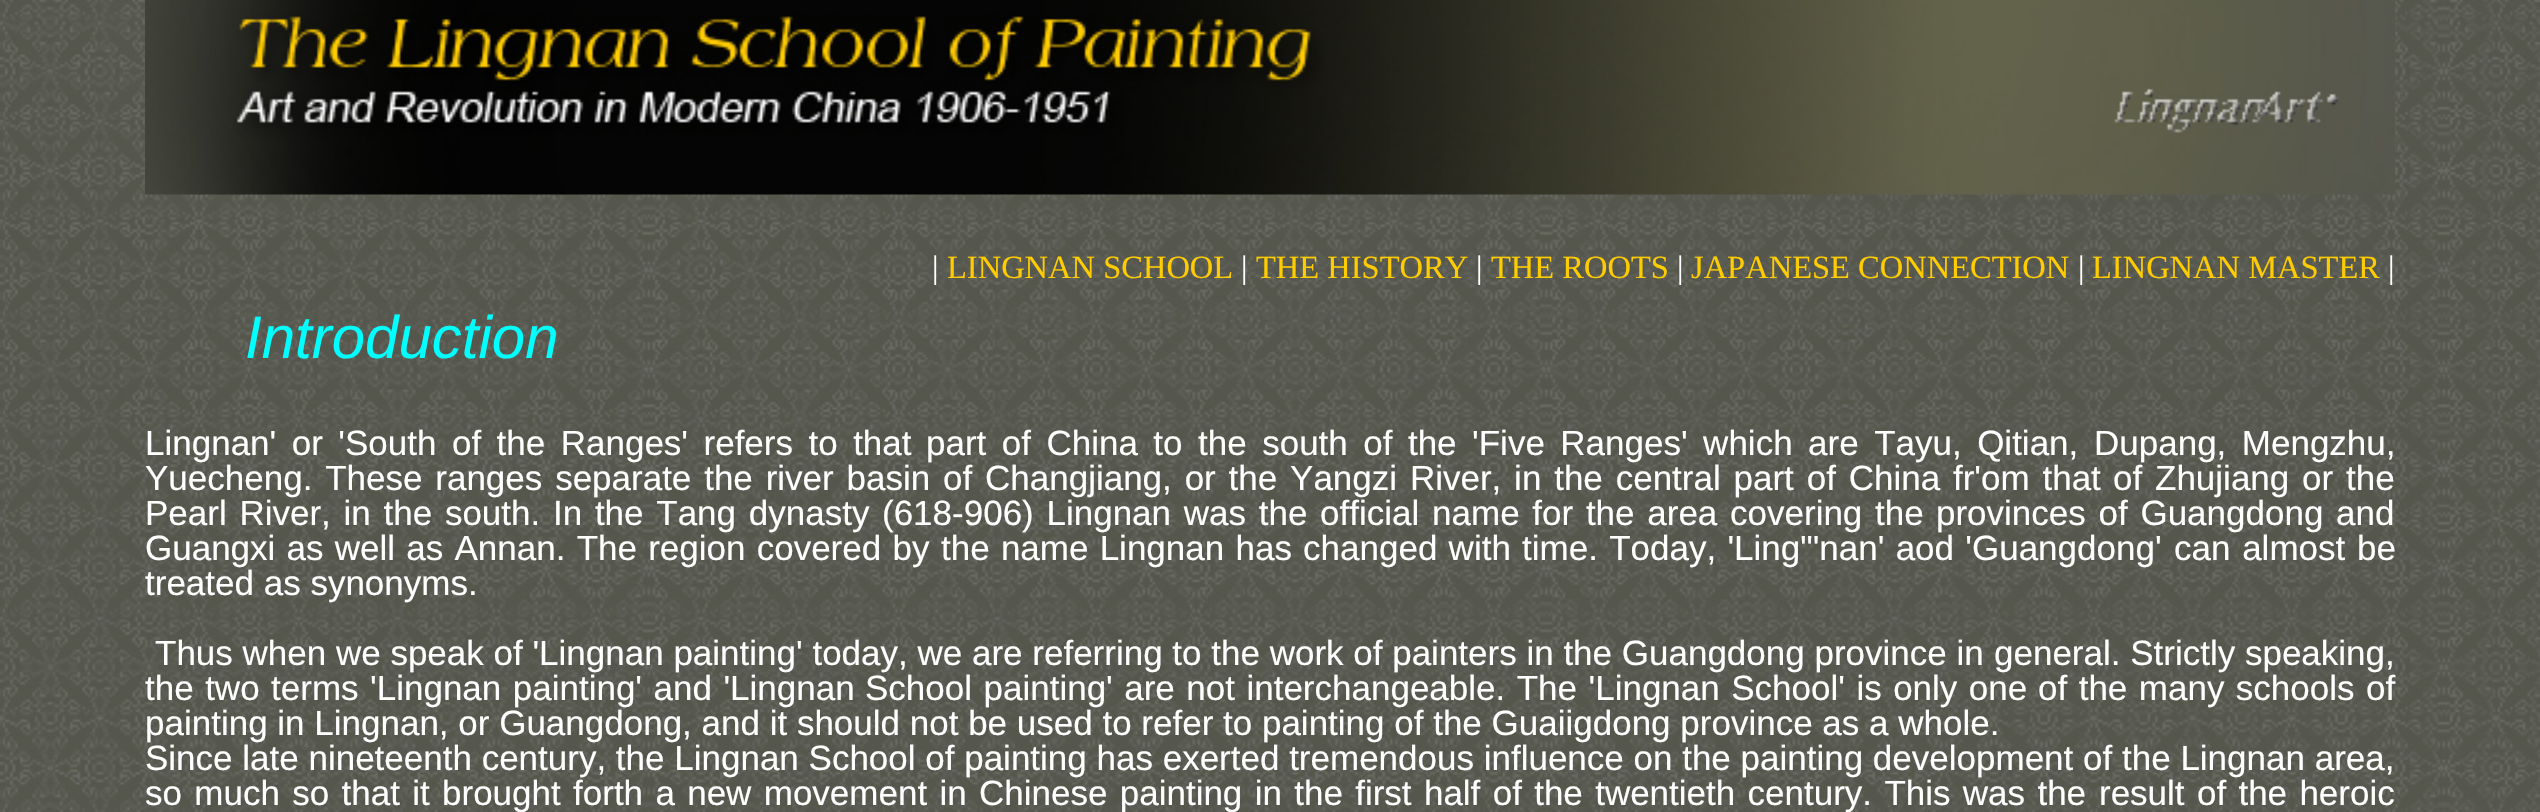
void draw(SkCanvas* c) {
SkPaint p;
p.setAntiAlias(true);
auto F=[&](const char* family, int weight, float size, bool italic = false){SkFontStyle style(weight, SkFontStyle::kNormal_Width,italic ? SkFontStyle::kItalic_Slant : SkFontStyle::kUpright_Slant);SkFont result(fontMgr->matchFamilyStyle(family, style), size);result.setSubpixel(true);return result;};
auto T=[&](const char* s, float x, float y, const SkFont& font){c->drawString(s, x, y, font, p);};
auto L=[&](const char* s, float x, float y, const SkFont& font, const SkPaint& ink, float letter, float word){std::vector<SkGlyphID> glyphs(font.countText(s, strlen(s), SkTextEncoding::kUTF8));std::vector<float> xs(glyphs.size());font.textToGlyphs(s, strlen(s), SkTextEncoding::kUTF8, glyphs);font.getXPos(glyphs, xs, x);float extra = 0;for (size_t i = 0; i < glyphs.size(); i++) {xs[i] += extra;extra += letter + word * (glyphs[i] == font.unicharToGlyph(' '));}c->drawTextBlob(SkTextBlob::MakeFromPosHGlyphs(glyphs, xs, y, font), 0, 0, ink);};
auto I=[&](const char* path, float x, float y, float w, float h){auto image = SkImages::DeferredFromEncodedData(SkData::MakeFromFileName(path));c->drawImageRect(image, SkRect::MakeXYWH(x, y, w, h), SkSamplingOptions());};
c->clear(0xffffffff);
I("1.png",0,0,2540,812);
I("2.png",145,0,2250,195);
auto f1 = F("Liberation Serif",400,32.5);
p.setColor(0xffffffff);
T("|",932,278,f1);
p.setColor(0xffffcc00);
T("LINGNAN SCHOOL",947,278,f1);
p.setColor(0xffffffff);
T("|",1241,278,f1);
p.setColor(0xffffcc00);
T("THE HISTORY",1256,278,f1);
p.setColor(0xffffffff);
T("|",1476,278,f1);
p.setColor(0xffffcc00);
T("THE ROOTS",1491,278,f1);
p.setColor(0xffffffff);
T("|",1677,278,f1);
p.setColor(0xffffcc00);
T("JAPANESE CONNECTION",1691,278,f1);
p.setColor(0xffffffff);
T("|",2078,278,f1);
p.setColor(0xffffcc00);
T("LINGNAN MASTER",2092,278,f1);
p.setColor(0xffffffff);
T("|",2388,278,f1);
auto f2 = F("Liberation Sans",400,60,true);
p.setColor(0xff00ffff);
T("Introduction",245,358,f2);
auto f3 = F("Liberation Sans",400,35);
p.setColor(0xffffffff);
L("Lingnan' or 'South of the Ranges' refers to that",145,455,f3,p,0,5.75);
L("part of China to the south of the 'Five Ranges' which are Tayu, Qitian,",926,455,f3,p,0,5.75);
L("Dupang, Mengzhu,",2094,455,f3,p,0,5.75);
L("Yuecheng. These ranges separate the river basin of",145,490,f3,p,0,3.1);
L("Changjiang, or the Yangzi River, in the central part of China fr'om that",985,490,f3,p,0,3.1);
L("of Zhujiang or the",2113,490,f3,p,0,3.1);
L("Pearl River, in the south. In the Tang dynasty",145,525,f3,p,0,3);
L("(618-906) Lingnan was the official name for the area covering the",882,525,f3,p,0,3);
L("provinces of Guangdong and",1936,525,f3,p,0,3);
L("Guangxi as well as Annan. The region covered by",145,560,f3,p,0,1.5);
L("the name Lingnan has changed with time. Today, 'Ling\"'nan' aod 'Guangdong'",941,560,f3,p,0,1.5);
L("can almost be",2174,560,f3,p,0,2);
T("treated as synonyms.",145,595,f3);
T("Thus when we speak of 'Lingnan painting' today, we",155,665,f3);
T("are referring to the work of painters in the Guangdong province in",972,665,f3);
T("general. Strictly speaking,",1994,665,f3);
L("the two terms 'Lingnan painting' and 'Lingnan",145,700,f3,p,0,1.75);
L("School painting' are not interchangeable. The 'Lingnan School' is only one",865,700,f3,p,0,1.75);
L("of the many schools of",2038,700,f3,p,0,1.75);
T("painting in Lingnan, or Guangdong, and it should not be used to refer to painting of the Guaiigdong province as a whole.",145,735,f3);
T("Since late nineteenth century, the Lingnan School of painting has exerted tremendous influence on the painting development of",145,770,f3);
T("the Lingnan area,",2122,770,f3);
L("so much so that it brought forth a new movement in",145,805,f3,p,0,2.6);
L("Chinese painting in the first half of the twentieth century. This was the",979,805,f3,p,0,2.6);
L("result of the heroic",2099,805,f3,p,0,2.6);
}
